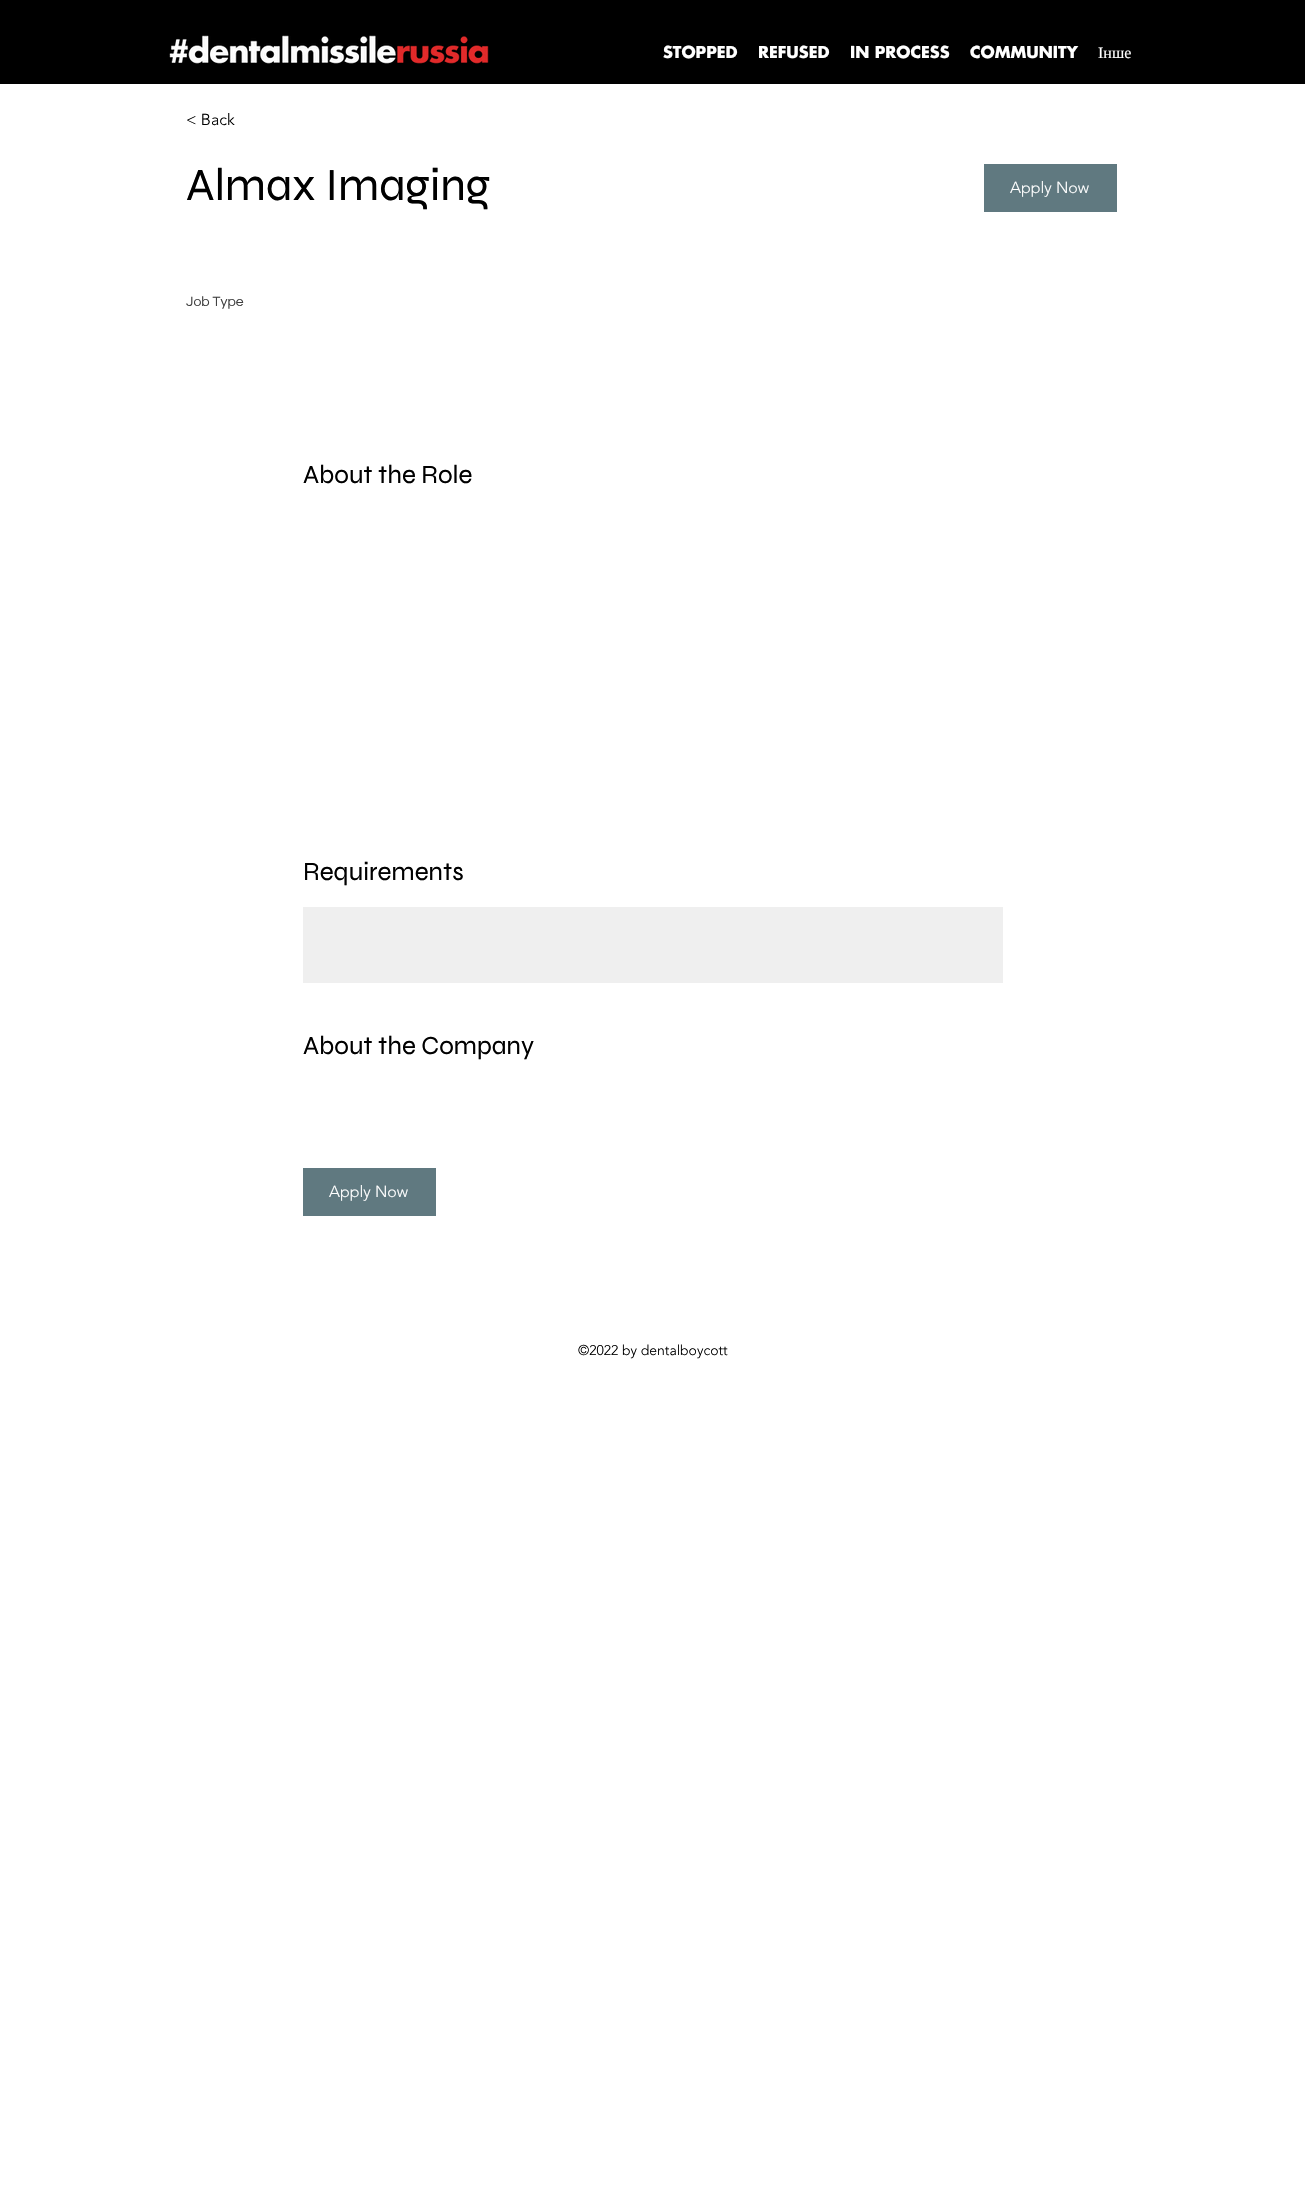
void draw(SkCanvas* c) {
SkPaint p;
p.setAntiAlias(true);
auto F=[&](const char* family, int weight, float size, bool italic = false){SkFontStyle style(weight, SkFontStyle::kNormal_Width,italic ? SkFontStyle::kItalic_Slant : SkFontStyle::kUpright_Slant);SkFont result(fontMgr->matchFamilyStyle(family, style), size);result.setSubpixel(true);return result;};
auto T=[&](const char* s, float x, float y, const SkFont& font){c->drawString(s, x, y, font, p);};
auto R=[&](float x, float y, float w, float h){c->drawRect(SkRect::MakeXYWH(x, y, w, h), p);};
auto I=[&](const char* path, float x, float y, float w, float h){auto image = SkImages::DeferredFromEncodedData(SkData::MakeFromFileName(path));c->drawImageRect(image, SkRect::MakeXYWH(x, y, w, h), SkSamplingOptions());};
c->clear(0xffffffff);
p.setColor(0xff000000);
R(0,0,1305,84);
I("1.png",169,35,320,29);
auto f1 = F("Futura",700,16);
p.setColor(0xffffffff);
T("STOPPED",663,58,f1);
T("REFUSED",758,58,f1);
T("IN PROCESS",850,58,f1);
T("COMMUNITY",970,58,f1);
auto f2 = F("Liberation Serif",400,16);
T("Інше",1098,58,f2);
auto f3 = F("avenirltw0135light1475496",300,16);
p.setColor(0xff000000);
T("< Back",186,125,f3);
auto f4 = F("Syne",400,46);
T("Almax Imaging",186,200,f4);
p.setColor(0xff607980);
R(984,164,133,48);
p.setColor(0xffffffff);
T("Apply Now",1010,193,f3);
auto f5 = F("Questrial",400,14);
p.setColor(0xff404040);
T("Job Type",186,306,f5);
auto f6 = F("Syne",400,26);
p.setColor(0xff000000);
T("About the Role",303,483,f6);
T("Requirements",303,880,f6);
p.setColor(0xffefefef);
R(303,907,700,76);
p.setColor(0xff000000);
T("About the Company",303,1054,f6);
p.setColor(0xff607980);
R(303,1168,133,48);
p.setColor(0xffffffff);
T("Apply Now",329,1197,f3);
auto f7 = F("avenirltw0135light1475496",300,14);
p.setColor(0xff000000);
T("©2022 by dentalboycott",578,1355,f7);
}
